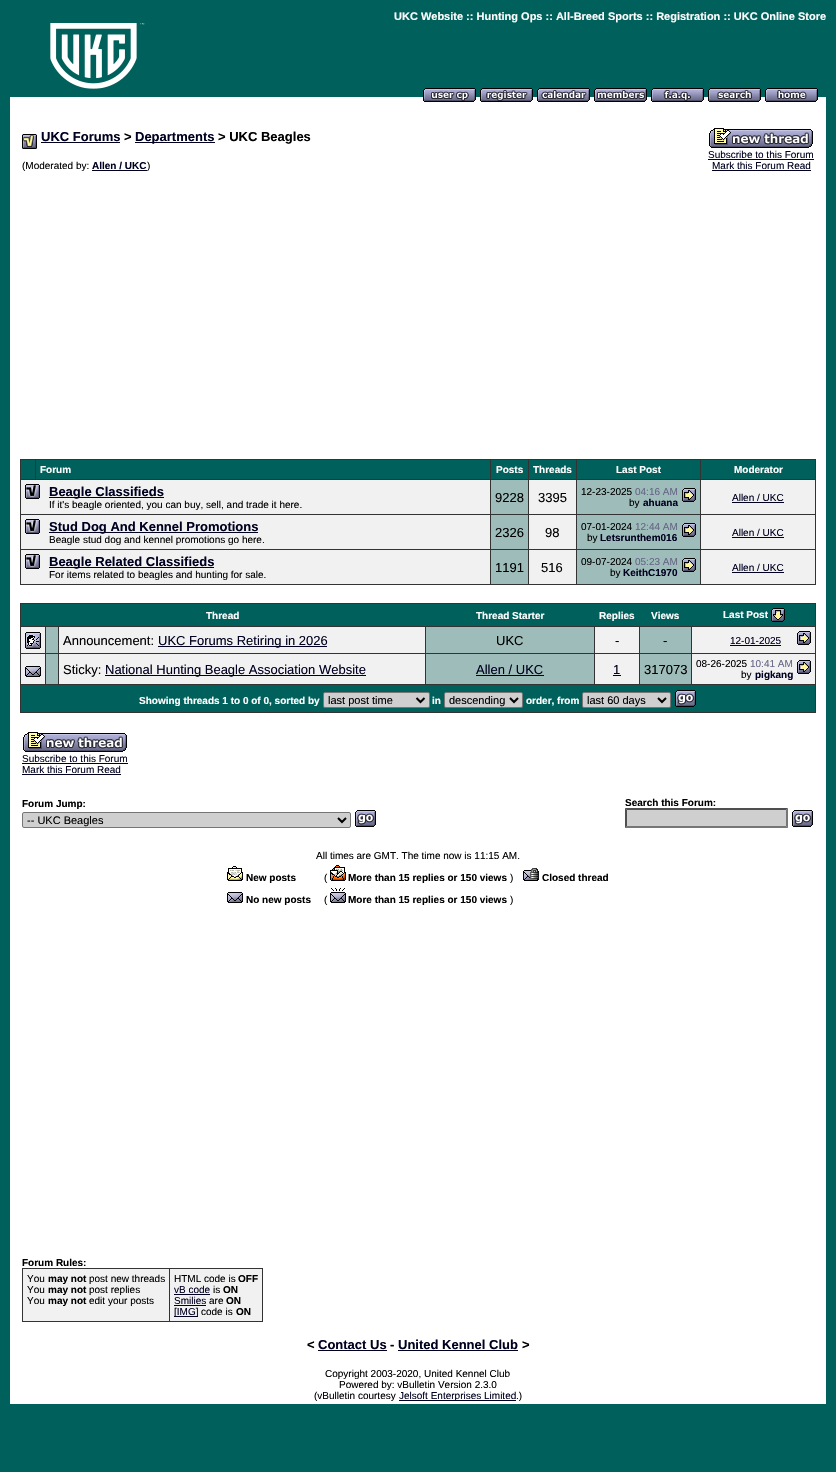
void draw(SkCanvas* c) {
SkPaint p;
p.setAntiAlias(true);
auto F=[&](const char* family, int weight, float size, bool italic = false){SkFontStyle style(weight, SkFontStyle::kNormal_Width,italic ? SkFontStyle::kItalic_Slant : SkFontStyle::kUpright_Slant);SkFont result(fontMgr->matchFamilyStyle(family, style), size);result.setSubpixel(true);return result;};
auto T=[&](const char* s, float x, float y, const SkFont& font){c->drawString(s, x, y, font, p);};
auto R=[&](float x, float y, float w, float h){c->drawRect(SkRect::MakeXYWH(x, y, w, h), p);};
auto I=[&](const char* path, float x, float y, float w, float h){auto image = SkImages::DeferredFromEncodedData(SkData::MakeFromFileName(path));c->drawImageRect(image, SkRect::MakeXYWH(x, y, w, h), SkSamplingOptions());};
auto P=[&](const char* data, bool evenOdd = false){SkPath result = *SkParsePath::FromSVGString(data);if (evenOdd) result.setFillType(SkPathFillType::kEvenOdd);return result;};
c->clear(0xff00605b);
p.setColor(0xffffffff);
R(10,97,816,1307);
auto f1 = F("Liberation Sans",700,11);
T("UKC Website :: Hunting Ops :: All-Breed Sports :: Registration :: UKC Online Store",394,20,f1);
I("1.png",50,23,95,66);
I("2.png",423,88,53,14);
I("3.png",480,88,53,14);
I("4.png",537,88,53,14);
I("5.png",594,88,53,14);
I("6.png",651,88,53,14);
I("7.png",708,88,53,14);
I("8.png",765,88,53,14);
I("9.png",22,134,15,15);
auto f2 = F("Liberation Sans",700,13);
p.setColor(0xff000020);
T("UKC Forums",41,141,f2);
R(41,142,79,1);
p.setColor(0xff000000);
T(">",124,141,f2);
p.setColor(0xff000020);
R(135,142,80,1);
T("Departments",135,141,f2);
p.setColor(0xff000000);
T("> UKC Beagles",218,141,f2);
auto f3 = F("Liberation Sans",400,10);
T("(Moderated by:",22,169,f3);
auto f4 = F("Liberation Sans",700,10);
p.setColor(0xff000020);
T("Allen / UKC",92,169,f4);
R(92,170,55,1);
p.setColor(0xff000000);
T(")",147,169,f3);
I("10.png",709,128,104,20);
p.setColor(0xff000020);
T("Subscribe to this Forum",708,158,f3);
R(708,159,106,1);
T("Mark this Forum Read",712,169,f3);
R(712,170,99,1);
p.setColor(0xff333333);
R(20,459,796,126);
p.setColor(0xff00605b);
R(21,460,14,19);
R(36,460,454,19);
p.setColor(0xffffffff);
T("Forum",40,473,f4);
p.setColor(0xff00605b);
R(491,460,37,19);
p.setColor(0xffffffff);
T("Posts",496,473,f4);
p.setColor(0xff00605b);
R(529,460,47,19);
p.setColor(0xffffffff);
T("Threads",533,473,f4);
p.setColor(0xff00605b);
R(577,460,123,19);
p.setColor(0xffffffff);
T("Last Post",616,473,f4);
p.setColor(0xff00605b);
R(701,460,114,19);
p.setColor(0xffffffff);
T("Moderator",734,473,f4);
p.setColor(0xfff1f1f1);
R(21,480,469,34);
I("11.png",25,484,15,15);
p.setColor(0xff000020);
R(49,497,115,1);
T("Beagle Classifieds",49,496,f2);
p.setColor(0xff000000);
T("If it's beagle oriented, you can buy, sell, and trade it here.",49,508,f3);
p.setColor(0xff9ebdba);
R(491,480,37,34);
auto f5 = F("Liberation Sans",400,13);
p.setColor(0xff000000);
T("9228",495,502,f5);
p.setColor(0xfff1f1f1);
R(529,480,47,34);
p.setColor(0xff000000);
T("3395",538,502,f5);
p.setColor(0xff9ebdba);
R(577,480,123,34);
p.setColor(0xff000000);
T("12-23-2025",581,495,f3);
p.setColor(0xff666686);
T("04:16 AM",635,495,f3);
p.setColor(0xff000000);
T("by",629,506,f3);
p.setColor(0xff000020);
T("ahuana",643,506,f4);
I("12.png",682,488,14,14);
p.setColor(0xfff1f1f1);
R(701,480,114,34);
p.setColor(0xff000020);
T("Allen / UKC",732,501,f3);
R(732,502,52,1);
p.setColor(0xfff1f1f1);
R(21,515,469,34);
I("11.png",25,519,15,15);
p.setColor(0xff000020);
R(49,532,209,1);
T("Stud Dog And Kennel Promotions",49,531,f2);
p.setColor(0xff000000);
T("Beagle stud dog and kennel promotions go here.",49,543,f3);
p.setColor(0xff9ebdba);
R(491,515,37,34);
p.setColor(0xff000000);
T("2326",495,537,f5);
p.setColor(0xfff1f1f1);
R(529,515,47,34);
p.setColor(0xff000000);
T("98",545,537,f5);
p.setColor(0xff9ebdba);
R(577,515,123,34);
p.setColor(0xff000000);
T("07-01-2024",581,530,f3);
p.setColor(0xff666686);
T("12:44 AM",635,530,f3);
p.setColor(0xff000000);
T("by",587,541,f3);
p.setColor(0xff000020);
T("Letsrunthem016",600,541,f4);
I("12.png",682,523,14,14);
p.setColor(0xfff1f1f1);
R(701,515,114,34);
p.setColor(0xff000020);
T("Allen / UKC",732,536,f3);
R(732,537,52,1);
p.setColor(0xfff1f1f1);
R(21,550,469,34);
I("11.png",25,554,15,15);
p.setColor(0xff000020);
R(49,567,165,1);
T("Beagle Related Classifieds",49,566,f2);
p.setColor(0xff000000);
T("For items related to beagles and hunting for sale.",49,578,f3);
p.setColor(0xff9ebdba);
R(491,550,37,34);
p.setColor(0xff000000);
T("1191",495,572,f5);
p.setColor(0xfff1f1f1);
R(529,550,47,34);
p.setColor(0xff000000);
T("516",541,572,f5);
p.setColor(0xff9ebdba);
R(577,550,123,34);
p.setColor(0xff000000);
T("09-07-2024",581,565,f3);
p.setColor(0xff666686);
T("05:23 AM",635,565,f3);
p.setColor(0xff000000);
T("by",610,576,f3);
p.setColor(0xff000020);
T("KeithC1970",623,576,f4);
I("12.png",682,558,14,14);
p.setColor(0xfff1f1f1);
R(701,550,114,34);
p.setColor(0xff000020);
T("Allen / UKC",732,571,f3);
R(732,572,52,1);
p.setColor(0xff333333);
R(20,603,796,110);
p.setColor(0xff00605b);
R(21,604,794,22);
p.setColor(0xffffffff);
T("Thread",206,619,f4);
T("Thread Starter",476,619,f4);
T("Replies",599,619,f4);
T("Views",651,619,f4);
T("Last Post",723,618,f4);
I("13.png",771,608,14,14);
p.setColor(0xfff1f1f1);
R(21,627,24,26);
I("14.png",25,632,16,17);
p.setColor(0xff9ebdba);
R(46,627,12,26);
p.setColor(0xfff1f1f1);
R(59,627,366,26);
p.setColor(0xff000000);
T("Announcement:",63,645,f5);
p.setColor(0xff000020);
R(158,646,169,1);
T("UKC Forums Retiring in 2026",158,645,f5);
p.setColor(0xff9ebdba);
R(426,627,168,26);
p.setColor(0xff000000);
T("UKC",496,645,f5);
p.setColor(0xfff1f1f1);
R(595,627,44,26);
p.setColor(0xff000000);
T("-",615,645,f5);
p.setColor(0xff9ebdba);
R(640,627,51,26);
p.setColor(0xff000000);
T("-",663,645,f5);
p.setColor(0xfff1f1f1);
R(692,627,123,26);
p.setColor(0xff000020);
T("12-01-2025",730,644,f3);
R(730,645,51,1);
I("15.png",797,631,14,14);
p.setColor(0xfff1f1f1);
R(21,654,24,30);
I("16.png",25,666,16,11);
p.setColor(0xff9ebdba);
R(46,654,12,30);
p.setColor(0xfff1f1f1);
R(59,654,366,30);
p.setColor(0xff000000);
T("Sticky:",63,674,f5);
p.setColor(0xff000020);
R(105,675,261,1);
T("National Hunting Beagle Association Website",105,674,f5);
p.setColor(0xff9ebdba);
R(426,654,168,30);
p.setColor(0xff000020);
T("Allen / UKC",476,674,f5);
R(476,675,68,1);
p.setColor(0xfff1f1f1);
R(595,654,44,30);
p.setColor(0xff000020);
T("1",613,674,f5);
R(613,675,8,1);
p.setColor(0xff9ebdba);
R(640,654,51,30);
p.setColor(0xff000000);
T("317073",644,674,f5);
p.setColor(0xfff1f1f1);
R(692,654,123,30);
p.setColor(0xff000000);
T("08-26-2025",696,667,f3);
p.setColor(0xff666686);
T("10:41 AM",750,667,f3);
p.setColor(0xff000000);
T("by",741,678,f3);
p.setColor(0xff000020);
T("pigkang",755,678,f4);
I("15.png",797,660,14,14);
p.setColor(0xff00605b);
R(21,685,794,27);
p.setColor(0xffffffff);
T("Showing threads 1 to 0 of 0, sorted by",139,704,f4);
p.setColor(0xffcfcfcf);
c->drawRoundRect(SkRect::MakeXYWH(323.5,692.5,106,15),1.5,1.5,p);
p.setStroke(true);
p.setStrokeWidth(1);
p.setColor(0xff767676);
c->drawRoundRect(SkRect::MakeXYWH(323.5,692.5,106,15),1.5,1.5,p);
p.setStrokeWidth(2);
p.setColor(0xff000000);
c->drawPath(P("M416.5 698l4 4l4-4"),p);
auto f6 = F("Liberation Sans",400,11);
p.setStroke(false);
T("last post time",328,704,f6);
p.setColor(0xffffffff);
T("in",432,704,f4);
p.setColor(0xffcfcfcf);
c->drawRoundRect(SkRect::MakeXYWH(444.5,692.5,78,15),1.5,1.5,p);
p.setStroke(true);
p.setStrokeWidth(1);
p.setColor(0xff767676);
c->drawRoundRect(SkRect::MakeXYWH(444.5,692.5,78,15),1.5,1.5,p);
p.setStrokeWidth(2);
p.setColor(0xff000000);
c->drawPath(P("M510 698l4 4l4-4"),p);
p.setStroke(false);
T("descending",449,704,f6);
p.setColor(0xffffffff);
T("order, from",526,704,f4);
p.setColor(0xffcfcfcf);
c->drawRoundRect(SkRect::MakeXYWH(582.5,692.5,88,15),1.5,1.5,p);
p.setStroke(true);
p.setStrokeWidth(1);
p.setColor(0xff767676);
c->drawRoundRect(SkRect::MakeXYWH(582.5,692.5,88,15),1.5,1.5,p);
p.setStrokeWidth(2);
p.setColor(0xff000000);
c->drawPath(P("M658 698l4 4l4-4"),p);
p.setStroke(false);
T("last 60 days",587,704,f6);
I("17.png",675,690,21,17);
I("10.png",23,732,104,20);
p.setColor(0xff000020);
T("Subscribe to this Forum",22,762,f3);
R(22,763,106,1);
T("Mark this Forum Read",22,773,f3);
R(22,774,99,1);
p.setColor(0xff000000);
T("Forum Jump:",22,807,f4);
p.setColor(0xffcfcfcf);
c->drawRoundRect(SkRect::MakeXYWH(22.5,812.5,328,15),1.5,1.5,p);
p.setStroke(true);
p.setStrokeWidth(1);
p.setColor(0xff767676);
c->drawRoundRect(SkRect::MakeXYWH(22.5,812.5,328,15),1.5,1.5,p);
p.setStrokeWidth(2);
p.setColor(0xff000000);
c->drawPath(P("M338 818l4 4l4-4"),p);
p.setStroke(false);
T("-- UKC Beagles",27,824,f6);
I("18.png",355,810,21,17);
T("Search this Forum:",625,806,f4);
p.setColor(0xffcfcfcf);
R(625,808,163,20);
p.setColor(0xff4f4f4f);
c->drawPath(P("M625 808h163l-2 2h-159z"),p);
p.setColor(0xff767676);
c->drawPath(P("M788 808v20l-2-2v-16z"),p);
c->drawPath(P("M788 828h-163l2-2h159z"),p);
p.setColor(0xff4f4f4f);
c->drawPath(P("M625 828v-20l2 2v16z"),p);
I("18.png",792,810,21,17);
p.setColor(0xff000000);
T("All times are GMT. The time now is 11:15 AM.",316,859,f3);
I("19.png",227,866,16,15);
T("New posts",246,881,f4);
T("(",324,881,f3);
I("20.png",330,865,16,16);
T("More than 15 replies or 150 views",348,881,f4);
T(")",510,881,f3);
I("21.png",523,868,16,13);
T("Closed thread",542,881,f4);
I("22.png",227,892,16,11);
T("No new posts",246,903,f4);
T("(",324,903,f3);
I("23.png",330,888,16,15);
T("More than 15 replies or 150 views",348,903,f4);
T(")",510,903,f3);
T("Forum Rules:",22,1266,f4);
p.setColor(0xff333333);
R(22,1268,241,54);
p.setColor(0xfff1f1f1);
R(23,1269,146,52);
p.setColor(0xff000000);
T("You",27,1282,f3);
T("may not",48,1282,f4);
T("post new threads",89,1282,f3);
T("You",27,1293,f3);
T("may not",48,1293,f4);
T("post replies",89,1293,f3);
T("You",27,1304,f3);
T("may not",48,1304,f4);
T("edit your posts",89,1304,f3);
p.setColor(0xfff1f1f1);
R(170,1269,92,52);
p.setColor(0xff000000);
T("HTML code is",174,1282,f3);
T("OFF",238,1282,f4);
p.setColor(0xff000020);
T("vB code",174,1293,f3);
R(174,1294,36,1);
p.setColor(0xff000000);
T("is",213,1293,f3);
T("ON",223,1293,f4);
p.setColor(0xff000020);
T("Smilies",174,1304,f3);
R(174,1305,32,1);
p.setColor(0xff000000);
T("are",209,1304,f3);
T("ON",226,1304,f4);
p.setColor(0xff000020);
R(174,1316,24,1);
T("[IMG]",174,1315,f3);
p.setColor(0xff000000);
T("code is",201,1315,f3);
T("ON",236,1315,f4);
T("<",307,1349,f2);
p.setColor(0xff000020);
T("Contact Us",318,1349,f2);
R(318,1350,69,1);
p.setColor(0xff000000);
T("-",390,1349,f2);
p.setColor(0xff000020);
T("United Kennel Club",398,1349,f2);
R(398,1350,120,1);
p.setColor(0xff000000);
T(">",522,1349,f2);
T("Copyright 2003-2020, United Kennel Club",325,1377,f3);
T("Powered by: vBulletin Version 2.3.0",339,1388,f3);
T("(vBulletin courtesy",314,1399,f3);
p.setColor(0xff000020);
R(399,1400,117,1);
T("Jelsoft Enterprises Limited",399,1399,f3);
p.setColor(0xff000000);
T(".)",516,1399,f3);
}
